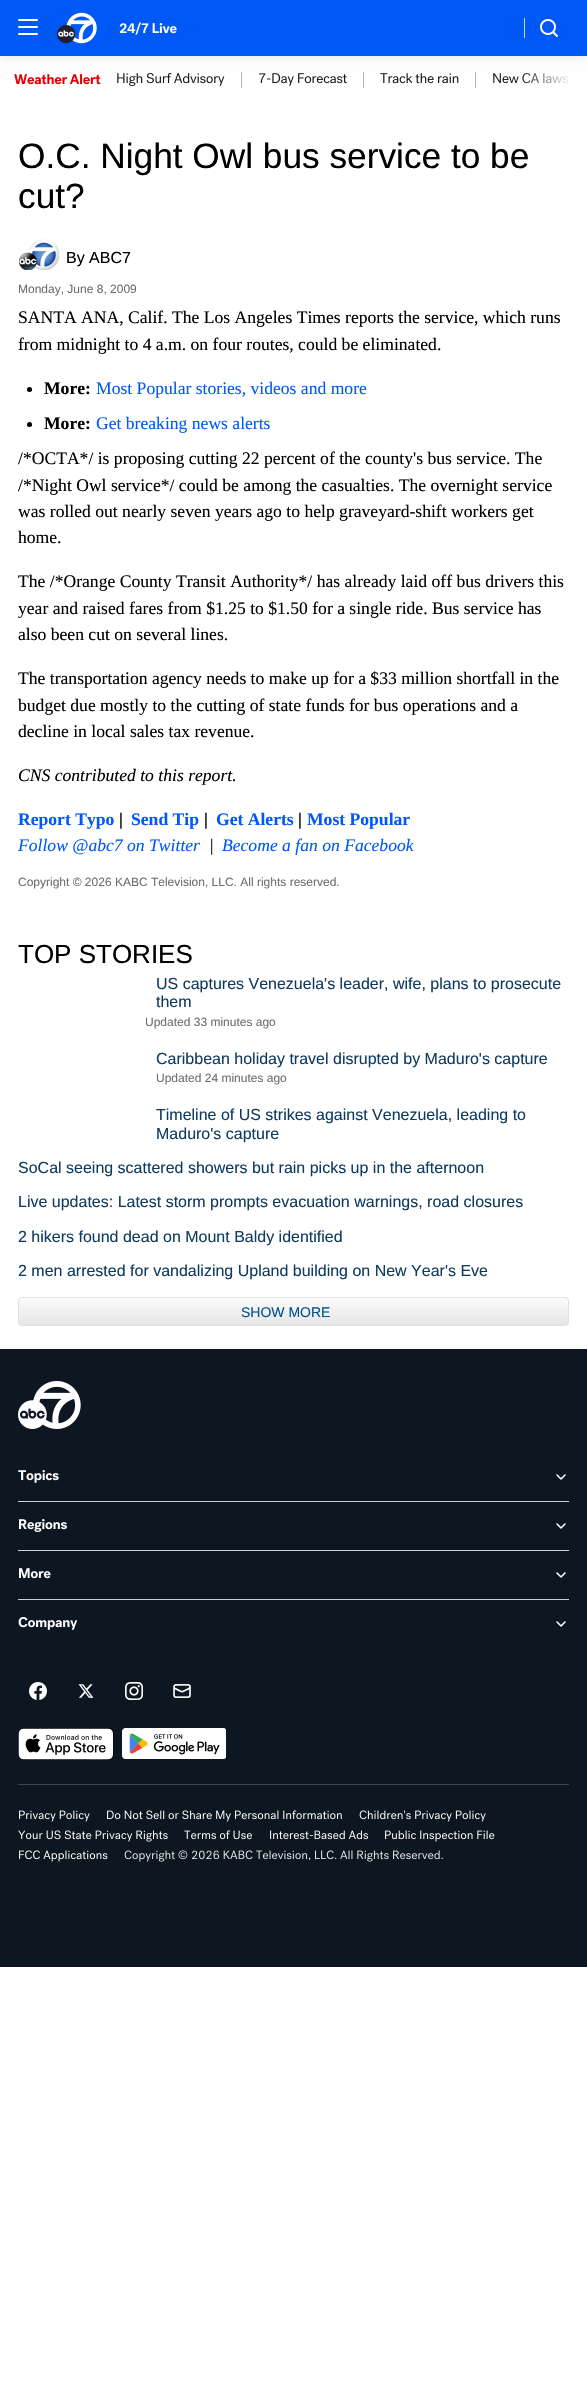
void draw(SkCanvas* c) {
SkPaint p;
p.setAntiAlias(true);
auto F=[&](const char* family, int weight, float size, bool italic = false){SkFontStyle style(weight, SkFontStyle::kNormal_Width,italic ? SkFontStyle::kItalic_Slant : SkFontStyle::kUpright_Slant);SkFont result(fontMgr->matchFamilyStyle(family, style), size);result.setSubpixel(true);return result;};
auto T=[&](const char* s, float x, float y, const SkFont& font){c->drawString(s, x, y, font, p);};
auto R=[&](float x, float y, float w, float h){c->drawRect(SkRect::MakeXYWH(x, y, w, h), p);};
auto Q=[&](float x, float y, float w, float h, float radius){c->drawRoundRect(SkRect::MakeXYWH(x, y, w, h), radius, radius, p);};
auto I=[&](const char* path, float x, float y, float w, float h){auto image = SkImages::DeferredFromEncodedData(SkData::MakeFromFileName(path));c->drawImageRect(image, SkRect::MakeXYWH(x, y, w, h), SkSamplingOptions());};
auto P=[&](const char* data, bool evenOdd = false){SkPath result = *SkParsePath::FromSVGString(data);if (evenOdd) result.setFillType(SkPathFillType::kEvenOdd);return result;};
c->clear(0xffffffff);
I("5.png",117,73,108,13);
p.setColor(0xffb0b5be);
R(241,72,1,16);
I("6.png",259,73,88,13);
R(363,72,1,16);
I("7.png",380,73,79,11);
R(475,72,1,16);
I("8.png",493,73,80,11);
{
const SkColor colors[] = {0xffffffff,0x00ffffff};
const float stops[] = {0,1};
const SkPoint ends[] = {{573,80}, {520,80}};
p.setShader(SkGradientShader::MakeLinear(ends, colors, stops, 2, SkTileMode::kClamp));
p.setAlpha(255);
}
R(522,73,51,11);
p.setShader(nullptr);
p.setColor(0x14000000);
p.setMaskFilter(SkMaskFilter::MakeBlur(kNormal_SkBlurStyle, 5));
c->drawRect(SkRect::MakeXYWH(0,2,587,56),p);
p.setMaskFilter(nullptr);
p.setColor(0xff0058f6);
R(0,0,587,56);
p.setColor(0xffffffff);
Q(18,26,20,2,1);
Q(18,19,20,2,1);
Q(18,33,20,2,1);
I("1.png",57,12,40,32);
I("2.png",119,22,58,13);
p.setColor(0xffcecfcf);
R(524,18,1,20);
I("3.png",540,19,18,18);
I("4.png",14,74,87,11);
auto f1 = F("Liberation Sans",400,35.25);
p.setColor(0xff000000);
T("O.C. Night Owl bus service to be",18,168,f1);
T("cut?",18,208,f1);
I("9.png",19,239,41,31);
auto f2 = F("Liberation Sans",400,16);
T("By ABC7",66,263,f2);
auto f3 = F("Liberation Sans",400,12);
p.setColor(0xff6e6e6e);
T("Monday, June 8, 2009",18,293,f3);
auto f4 = F("Liberation Serif",400,17.6);
p.setColor(0xff000000);
T("SANTA ANA, Calif. The Los Angeles Times reports the service, which runs",18,323,f4);
T("from midnight to 4 a.m. on four routes, could be eliminated.",18,350,f4);
c->drawCircle(29.5,389.5,2.5,p);
auto f5 = F("Liberation Serif",700,17.6);
T("More:",44,394,f5);
p.setColor(0xff0058f6);
T("Most Popular stories, videos and more",96,394,f4);
p.setColor(0xff000000);
c->drawCircle(29.5,424.5,2.5,p);
T("More:",44,429,f5);
p.setColor(0xff0058f6);
T("Get breaking news alerts",96,429,f4);
p.setColor(0xff000000);
T("/*OCTA*/ is proposing cutting 22 percent of the county's bus service. The",18,464,f4);
T("/*Night Owl service*/ could be among the casualties. The overnight service",18,491,f4);
T("was rolled out nearly seven years ago to help graveyard-shift workers get",18,517,f4);
T("home.",18,543,f4);
T("The /*Orange County Transit Authority*/ has already laid off bus drivers this",18,587,f4);
T("year and raised fares from $1.25 to $1.50 for a single ride. Bus service has",18,614,f4);
T("also been cut on several lines.",18,640,f4);
T("The transportation agency needs to make up for a $33 million shortfall in the",18,684,f4);
T("budget due mostly to the cutting of state funds for bus operations and a",18,711,f4);
T("decline in local sales tax revenue.",18,737,f4);
auto f6 = F("Liberation Serif",400,17.6,true);
T("CNS contributed to this report.",18,781,f6);
p.setColor(0xff0058f6);
T("Report Typo",18,825,f5);
p.setColor(0xff000000);
T("|",119,825,f5);
p.setColor(0xff0058f6);
T("Send Tip",131,825,f5);
p.setColor(0xff000000);
T("|",204,825,f5);
p.setColor(0xff0058f6);
T("Get Alerts",216,825,f5);
p.setColor(0xff000000);
T("|",298,825,f5);
p.setColor(0xff0058f6);
T("Most Popular",307,825,f5);
T("Follow @abc7 on Twitter",18,851,f6);
p.setColor(0xff000000);
T("|",209,851,f6);
p.setColor(0xff0058f6);
T("Become a fan on Facebook",222,851,f6);
p.setColor(0xff6e6e6e);
T("Copyright © 2026 KABC Television, LLC. All rights reserved.",18,886,f3);
auto f7 = F("Liberation Sans",400,26);
p.setColor(0xff000000);
T("TOP STORIES",18,963,f7);
p.setColor(0xff103b61);
T("US captures Venezuela's leader, wife, plans to prosecute",156,989,f2);
T("them",156,1007,f2);
p.setColor(0xff6e6e6e);
T("Updated 33 minutes ago",145,1026,f3);
p.setColor(0xff103b61);
T("Caribbean holiday travel disrupted by Maduro's capture",156,1064,f2);
p.setColor(0xff6e6e6e);
T("Updated 24 minutes ago",156,1082,f3);
p.setColor(0xff103b61);
T("Timeline of US strikes against Venezuela, leading to",156,1120,f2);
T("Maduro's capture",156,1139,f2);
T("SoCal seeing scattered showers but rain picks up in the afternoon",18,1173,f2);
T("Live updates: Latest storm prompts evacuation warnings, road closures",18,1207,f2);
T("2 hikers found dead on Mount Baldy identified",18,1242,f2);
T("2 men arrested for vandalizing Upland building on New Year's Eve",18,1276,f2);
c->save();
c->clipPath(P("M22 1297h543c2 0 4 2 4 4v21c0 2-2 4-4 4h-543c-2 0-4-2-4-4v-21c0-2 2-4 4-4z"),true);
{
const SkColor colors[] = {0xfffcfcfc,0xffe5e5e5};
const float stops[] = {0,1};
const SkPoint ends[] = {{294,1298}, {294,1325}};
p.setShader(SkGradientShader::MakeLinear(ends, colors, stops, 2, SkTileMode::kClamp));
p.setAlpha(255);
}
R(18,1298,551,27);
c->restore();
p.setStroke(true);
p.setStrokeWidth(1);
p.setShader(nullptr);
p.setColor(0xffe0e0e0);
c->drawRoundRect(SkRect::MakeXYWH(18.5,1297.5,550,28),3.5,3.5,p);
auto f8 = F("Liberation Sans",400,14);
p.setStroke(false);
p.setColor(0xff00528d);
T("SHOW MORE",241,1317,f8);
p.setColor(0xff0d1721);
R(0,1349,587,618);
I("10.png",18,1381,63,48);
p.setColor(0xffcecfcf);
R(18,1501,551,1);
I("11.png",18,1470,41,13);
I("12.png",556,1474,10,6);
R(18,1550,551,1);
I("13.png",19,1519,48,13);
I("12.png",556,1523,10,6);
R(18,1599,551,1);
I("14.png",19,1568,32,11);
I("12.png",556,1572,10,6);
I("15.png",18,1617,60,13);
I("12.png",556,1621,10,6);
I("16.png",29,1682,18,18);
I("17.png",78,1684,16,14);
I("18.png",125,1682,18,18);
I("19.png",173,1684,18,14);
I("20.png",18,1728,96,32);
I("21.png",122,1728,104,31);
p.setColor(0xff3d454d);
R(18,1784,551,1);
I("22.png",19,1810,71,12);
I("23.png",107,1810,235,12);
I("24.png",359,1810,127,12);
I("25.png",18,1830,150,12);
I("26.png",184,1830,68,10);
I("27.png",270,1830,99,10);
I("28.png",385,1830,110,12);
I("29.png",19,1850,89,12);
I("30.png",124,1850,64,12);
I("31.png",192,1850,251,12);
}
